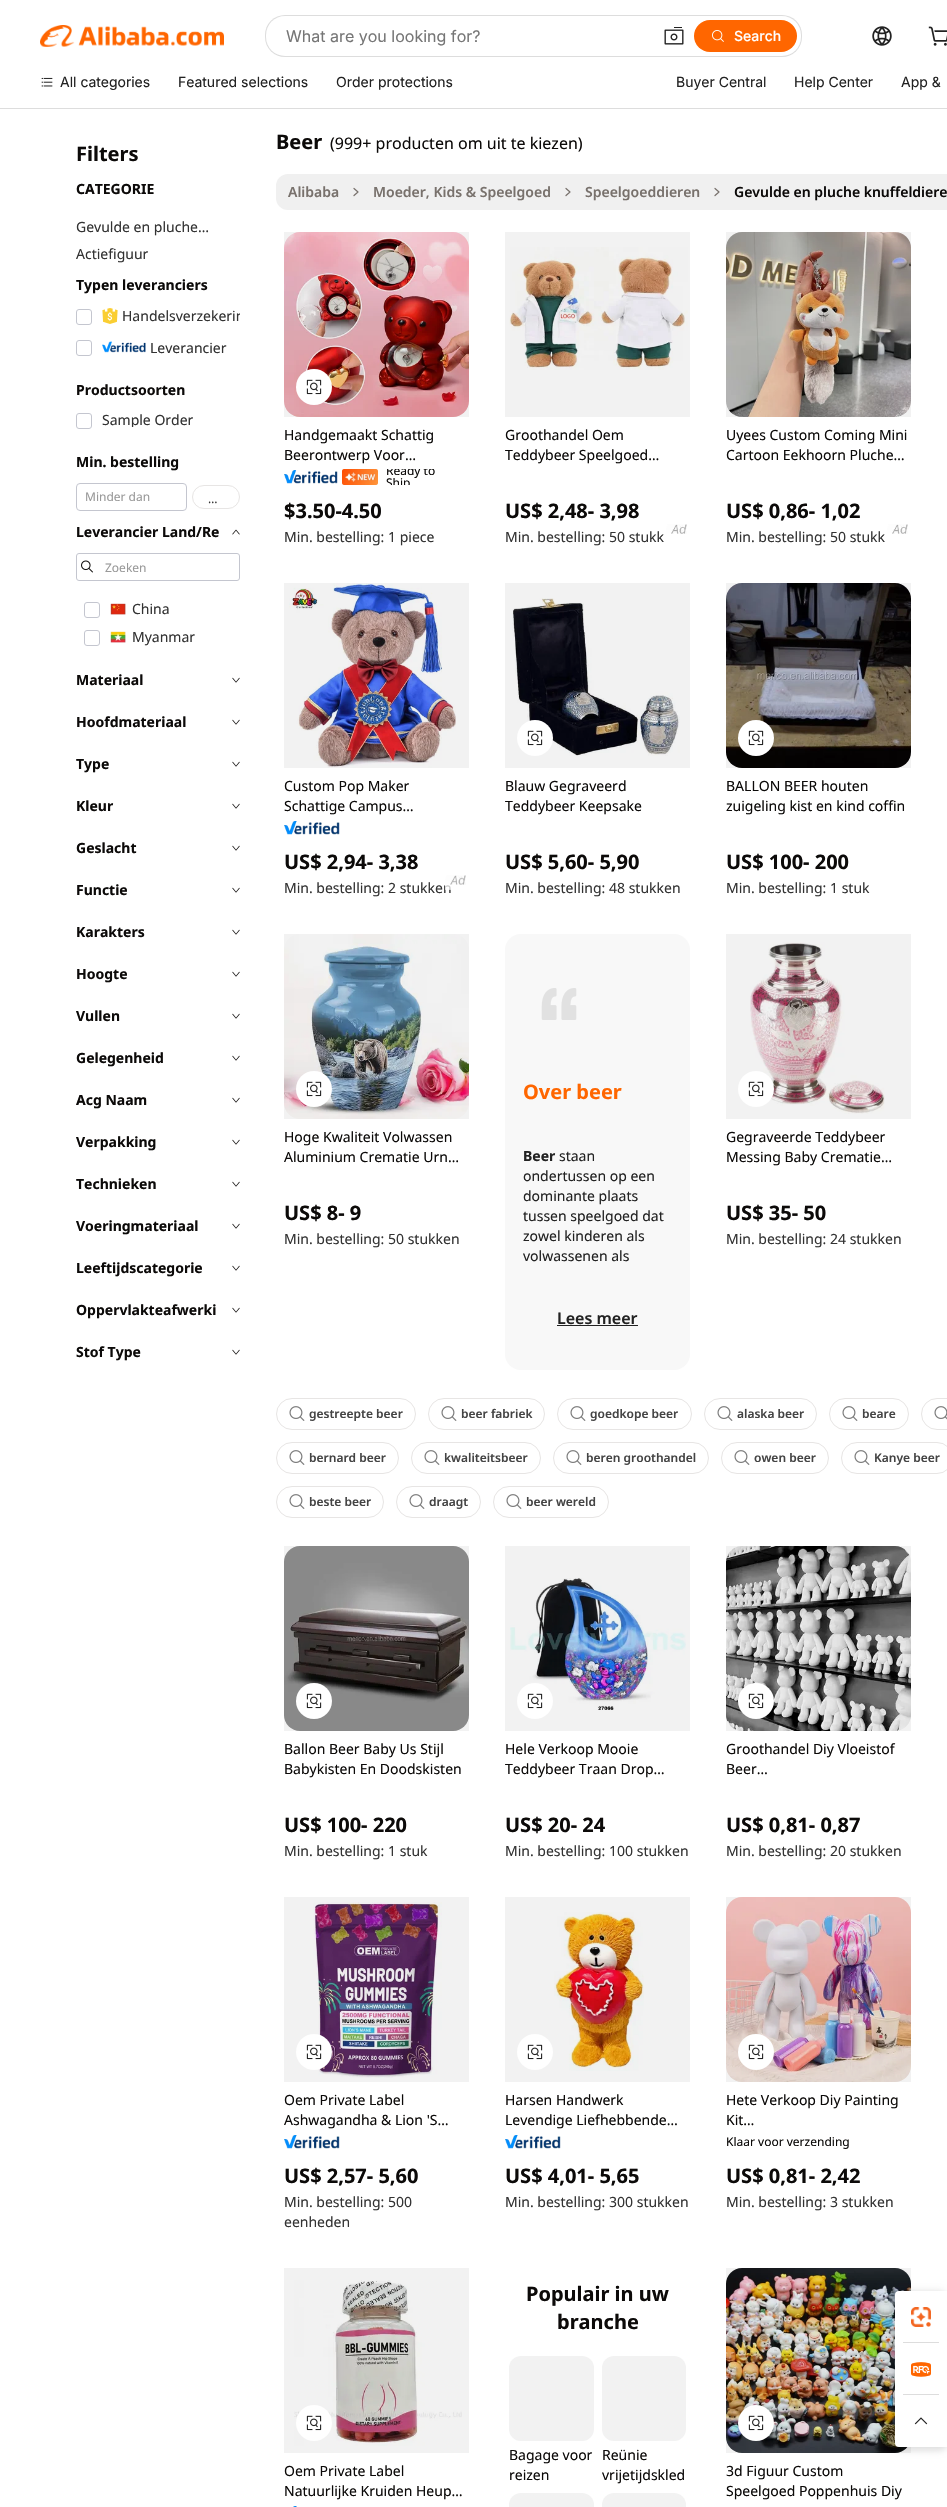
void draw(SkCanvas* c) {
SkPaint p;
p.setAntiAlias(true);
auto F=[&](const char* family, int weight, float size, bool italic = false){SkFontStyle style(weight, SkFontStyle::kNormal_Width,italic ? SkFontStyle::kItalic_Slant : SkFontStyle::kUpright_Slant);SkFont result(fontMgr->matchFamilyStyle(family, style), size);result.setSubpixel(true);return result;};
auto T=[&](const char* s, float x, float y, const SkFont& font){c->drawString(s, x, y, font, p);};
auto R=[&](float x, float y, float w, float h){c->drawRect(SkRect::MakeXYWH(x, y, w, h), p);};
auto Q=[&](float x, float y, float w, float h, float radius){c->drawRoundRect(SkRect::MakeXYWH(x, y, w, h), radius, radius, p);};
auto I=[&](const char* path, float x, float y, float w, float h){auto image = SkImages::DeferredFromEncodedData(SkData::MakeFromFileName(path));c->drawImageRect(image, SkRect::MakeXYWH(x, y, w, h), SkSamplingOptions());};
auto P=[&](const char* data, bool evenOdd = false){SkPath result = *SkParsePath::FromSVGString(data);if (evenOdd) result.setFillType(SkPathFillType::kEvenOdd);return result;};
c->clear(0xffffffff);
p.setColor(0xffdddddd);
R(0,108,947,1);
I("1.png",40,25,184,22);
Q(265,15,537,42,20);
p.setColor(0xffffffff);
Q(266,16,535,40,19);
auto f1 = F("Inter",400,16);
p.setColor(0xff767676);
T("What are you looking for?",286,42,f1);
I("2.png",664,27,20,18);
p.setColor(0xffff6600);
Q(694,20,103,32,16);
I("3.png",712,30,12,12);
auto f2 = F("Inter",500,14);
p.setColor(0xffffffff);
T("Search",734,41,f2);
I("4.png",872,26,20,20);
I("5.png",928,26,19,20);
I("6.png",41,77,12,10);
auto f3 = F("Inter",400,14);
p.setColor(0xff222222);
T("All categories",60,87,f3);
T("Featured selections",178,87,f3);
T("Order protections",336,87,f3);
T("Buyer Central",676,87,f3);
T("Help Center",794,87,f3);
T("App &",901,87,f3);
auto f4 = F("Noto Sans",700,20);
p.setColor(0xff0c0a09);
T("Filters",76,161,f4);
auto f5 = F("Noto Sans",700,14);
T("CATEGORIE",76,194,f5);
auto f6 = F("Noto Sans",400,14);
p.setColor(0xff333333);
T("Gevulde en pluche…",76,232,f6);
T("Actiefiguur",76,259,f6);
p.setColor(0xff0c0a09);
T("Typen leveranciers",76,290,f5);
p.setStroke(true);
p.setStrokeWidth(1);
p.setColor(0xffc4c6cf);
c->drawRoundRect(SkRect::MakeXYWH(76.5,309.5,15,15),2.5,2.5,p);
I("7.png",102,308,16,16);
c->save();
c->clipRect(SkRect::MakeXYWH(122,306,118,20));
p.setStroke(false);
p.setColor(0xff333333);
T("Handelsverzekerin",122,321,f6);
c->restore();
p.setStroke(true);
p.setColor(0xffc4c6cf);
c->drawRoundRect(SkRect::MakeXYWH(76.5,340.5,15,15),2.5,2.5,p);
I("8.png",102,341,44,12);
p.setStroke(false);
p.setColor(0xff333333);
T("Leverancier",150,353,f6);
p.setColor(0xff0c0a09);
T("Productsoorten",76,395,f5);
p.setStroke(true);
p.setColor(0xffc4c6cf);
c->drawRoundRect(SkRect::MakeXYWH(76.5,413.5,15,15),2.5,2.5,p);
c->save();
c->clipRect(SkRect::MakeXYWH(102,413,91,14));
p.setStroke(false);
p.setColor(0xff333333);
T("Sample Order",102,425,f6);
c->restore();
p.setColor(0xff0c0a09);
T("Min. bestelling",76,467,f5);
p.setStroke(true);
p.setColor(0xffc4c6cf);
c->drawRoundRect(SkRect::MakeXYWH(76.5,483.5,110,27),3.5,3.5,p);
auto f7 = F("Noto Sans",400,12);
p.setStroke(false);
p.setColor(0xff999999);
T("Minder dan",85,501,f7);
p.setStroke(true);
p.setColor(0xffe7e5e4);
c->drawRoundRect(SkRect::MakeXYWH(192.5,485.5,47,23),11.5,11.5,p);
p.setStroke(false);
p.setColor(0xff333333);
T("…",208,503,f7);
p.setColor(0xff0c0a09);
T("Leverancier Land/Re",76,537,f5);
I("9.png",232,529,8,6);
p.setStroke(true);
p.setColor(0xffc4c6cf);
c->drawRoundRect(SkRect::MakeXYWH(76.5,553.5,163,27),2.5,2.5,p);
I("10.png",81,560,12,13);
p.setStroke(false);
p.setColor(0xff999999);
T("Zoeken",105,572,f7);
p.setStroke(true);
p.setColor(0xffc4c6cf);
c->drawRoundRect(SkRect::MakeXYWH(84.5,602.5,15,15),2.5,2.5,p);
I("11.png",110,603,16,12);
p.setStroke(false);
p.setColor(0xff333333);
T("China",132,614,f6);
p.setStroke(true);
p.setColor(0xffc4c6cf);
c->drawRoundRect(SkRect::MakeXYWH(84.5,630.5,15,15),2.5,2.5,p);
I("12.png",110,631,16,12);
p.setStroke(false);
p.setColor(0xff333333);
T("Myanmar",132,642,f6);
p.setColor(0xff0c0a09);
T("Materiaal",76,685,f5);
I("13.png",232,677,8,6);
T("Hoofdmateriaal",76,727,f5);
I("13.png",232,719,8,6);
T("Type",76,769,f5);
I("13.png",232,761,8,6);
T("Kleur",76,811,f5);
I("13.png",232,803,8,6);
T("Geslacht",76,853,f5);
I("13.png",232,845,8,6);
T("Functie",76,895,f5);
I("13.png",232,887,8,6);
T("Karakters",76,937,f5);
I("13.png",232,929,8,6);
T("Hoogte",76,979,f5);
I("13.png",232,971,8,6);
T("Vullen",76,1021,f5);
I("13.png",232,1013,8,6);
T("Gelegenheid",76,1063,f5);
I("13.png",232,1055,8,6);
T("Acg Naam",76,1105,f5);
I("13.png",232,1097,8,6);
T("Verpakking",76,1147,f5);
I("13.png",232,1139,8,6);
T("Technieken",76,1189,f5);
I("13.png",232,1181,8,6);
T("Voeringmateriaal",76,1231,f5);
I("13.png",232,1223,8,6);
T("Leeftijdscategorie",76,1273,f5);
I("13.png",232,1265,8,6);
T("Oppervlakteafwerki",76,1315,f5);
I("13.png",232,1307,8,6);
T("Stof Type",76,1357,f5);
I("13.png",232,1349,8,6);
T("Beer",276,149,f4);
auto f8 = F("Noto Sans",400,16);
T("(999+ producten om uit te kiezen)",330,149,f8);
p.setColor(0xfff0f0f0);
Q(276,174,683,36,12);
auto f9 = F("Noto Sans",600,14);
p.setColor(0xff78716c);
T("Alibaba",288,197,f9);
p.setStroke(true);
p.setStrokeWidth(1.2);
p.setStrokeCap(SkPaint::kRound_Cap);
p.setStrokeJoin(SkPaint::kRound_Join);
c->drawPath(P("M354 195.5l4-3.5l-4-3.5"),p);
p.setStroke(false);
T("Moeder, Kids & Speelgoed",373,197,f9);
p.setStroke(true);
c->drawPath(P("M566 195.5l4-3.5l-4-3.5"),p);
p.setStroke(false);
T("Speelgoeddieren",585,197,f9);
p.setStroke(true);
c->drawPath(P("M715 195.5l4-3.5l-4-3.5"),p);
p.setStroke(false);
p.setColor(0xff0c0a09);
T("Gevulde en pluche knuffeldiere",734,197,f9);
I("14.png",284,232,185,185);
p.setColor(0x0d000000);
R(284,232,185,185);
p.setColor(0xffffffff);
c->drawCircle(314,387,18,p);
I("15.png",306,379,16,16);
p.setColor(0xff0c0a09);
T("Handgemaakt Schattig",284,440,f6);
T("Beerontwerp Voor…",284,460,f6);
I("16.png",284,470,54,14);
I("17.png",342,469,36,16);
c->save();
c->clipRect(SkRect::MakeXYWH(284,469,185,16));
T("Ready to",386,475,f7);
T("Ship",386,487,f7);
c->restore();
T("$3.50-4.50",284,518,f4);
p.setColor(0xff333333);
T("Min. bestelling: 1 piece",284,542,f6);
I("18.png",509,247,179,123);
p.setColor(0x0d000000);
R(505,232,185,185);
p.setColor(0xff0c0a09);
T("Groothandel Oem",505,440,f6);
T("Teddybeer Speelgoed…",505,460,f6);
T("US$ 2,48- 3,98",505,518,f4);
p.setColor(0xff333333);
T("Min. bestelling: 50 stukk",505,542,f6);
I("19.png",666,524,21,15);
I("20.png",726,232,185,185);
p.setColor(0x0d000000);
R(726,232,185,185);
p.setColor(0xff0c0a09);
T("Uyees Custom Coming Mini",726,440,f6);
T("Cartoon Eekhoorn Pluche…",726,460,f6);
T("US$ 0,86- 1,02",726,518,f4);
p.setColor(0xff333333);
T("Min. bestelling: 50 stukk",726,542,f6);
I("19.png",887,524,21,15);
I("21.png",289,583,167,185);
p.setColor(0x0d000000);
R(284,583,185,185);
p.setColor(0xff0c0a09);
T("Custom Pop Maker",284,791,f6);
T("Schattige Campus…",284,811,f6);
I("22.png",284,821,56,14);
T("US$ 2,94- 3,38",284,869,f4);
p.setColor(0xff333333);
T("Min. bestelling: 2 stukken",284,893,f6);
I("23.png",445,875,21,15);
I("24.png",512,598,168,158);
p.setColor(0x0d000000);
R(505,583,185,185);
p.setColor(0xffffffff);
c->drawCircle(535,738,18,p);
I("15.png",527,730,16,16);
p.setColor(0xff0c0a09);
T("Blauw Gegraveerd",505,791,f6);
T("Teddybeer Keepsake",505,811,f6);
T("US$ 5,60- 5,90",505,869,f4);
p.setColor(0xff333333);
T("Min. bestelling: 48 stukken",505,893,f6);
I("25.png",726,583,185,185);
p.setColor(0x0d000000);
R(726,583,185,185);
p.setColor(0xffffffff);
c->drawCircle(756,738,18,p);
I("15.png",748,730,16,16);
p.setColor(0xff0c0a09);
T("BALLON BEER houten",726,791,f6);
T("zuigeling kist en kind coffin",726,811,f6);
T("US$ 100- 200",726,869,f4);
p.setColor(0xff333333);
T("Min. bestelling: 1 stuk",726,893,f6);
I("26.png",284,934,185,185);
p.setColor(0x0d000000);
R(284,934,185,185);
p.setColor(0xffffffff);
c->drawCircle(314,1089,18,p);
I("15.png",306,1081,16,16);
p.setColor(0xff0c0a09);
T("Hoge Kwaliteit Volwassen",284,1142,f6);
T("Aluminium Crematie Urn…",284,1162,f6);
T("US$ 8- 9",284,1220,f4);
p.setColor(0xff333333);
T("Min. bestelling: 50 stukken",284,1244,f6);
p.setColor(0xfff8f8f8);
Q(505,934,185,436,16);
I("27.png",541,988,36,32);
p.setColor(0xffff6600);
T("Over beer",523,1099,f4);
p.setColor(0xff222222);
T("Beer",523,1161,f5);
T("staan",559,1161,f6);
T("ondertussen op een",523,1181,f6);
T("dominante plaats",523,1201,f6);
T("tussen speelgoed dat",523,1221,f6);
T("zowel kinderen als",523,1241,f6);
T("volwassenen als",523,1261,f6);
auto f10 = F("Noto Sans",600,16);
T("Lees meer",557,1324,f10);
R(557,1325,81,1);
I("28.png",750,942,135,172);
p.setColor(0x0d000000);
R(726,934,185,185);
p.setColor(0xffffffff);
c->drawCircle(756,1089,18,p);
I("15.png",748,1081,16,16);
p.setColor(0xff0c0a09);
T("Gegraveerde Teddybeer",726,1142,f6);
T("Messing Baby Crematie…",726,1162,f6);
T("US$ 35- 50",726,1220,f4);
p.setColor(0xff333333);
T("Min. bestelling: 24 stukken",726,1244,f6);
p.setStroke(true);
p.setStrokeWidth(1);
p.setStrokeCap(SkPaint::kButt_Cap);
p.setStrokeJoin(SkPaint::kMiter_Join);
p.setColor(0xffe7e5e4);
c->drawRoundRect(SkRect::MakeXYWH(276.5,1398.5,139,31),15.5,15.5,p);
I("29.png",289,1406,16,15);
auto f11 = F("Noto Sans",600,12);
p.setStroke(false);
p.setColor(0xff444444);
T("gestreepte beer",309,1418,f11);
p.setStroke(true);
p.setColor(0xffe7e5e4);
c->drawRoundRect(SkRect::MakeXYWH(428.5,1398.5,116,31),15.5,15.5,p);
I("29.png",441,1406,16,15);
p.setStroke(false);
p.setColor(0xff444444);
T("beer fabriek",461,1418,f11);
p.setStroke(true);
p.setColor(0xffe7e5e4);
c->drawRoundRect(SkRect::MakeXYWH(557.5,1398.5,134,31),15.5,15.5,p);
I("29.png",570,1406,16,15);
p.setStroke(false);
p.setColor(0xff444444);
T("goedkope beer",590,1418,f11);
p.setStroke(true);
p.setColor(0xffe7e5e4);
c->drawRoundRect(SkRect::MakeXYWH(704.5,1398.5,112,31),15.5,15.5,p);
I("29.png",717,1406,16,15);
p.setStroke(false);
p.setColor(0xff444444);
T("alaska beer",737,1418,f11);
p.setStroke(true);
p.setColor(0xffe7e5e4);
c->drawRoundRect(SkRect::MakeXYWH(829.5,1398.5,79,31),15.5,15.5,p);
I("29.png",842,1406,16,15);
p.setStroke(false);
p.setColor(0xff444444);
T("beare",862,1418,f11);
p.setStroke(true);
p.setColor(0xffe7e5e4);
c->drawRoundRect(SkRect::MakeXYWH(921.5,1398.5,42,31),15.5,15.5,p);
I("30.png",934,1406,13,14);
c->drawRoundRect(SkRect::MakeXYWH(276.5,1442.5,122,31),15.5,15.5,p);
I("29.png",289,1450,16,15);
p.setStroke(false);
p.setColor(0xff444444);
T("bernard beer",309,1462,f11);
p.setStroke(true);
p.setColor(0xffe7e5e4);
c->drawRoundRect(SkRect::MakeXYWH(411.5,1442.5,129,31),15.5,15.5,p);
I("29.png",424,1450,16,15);
p.setStroke(false);
p.setColor(0xff444444);
T("kwaliteitsbeer",444,1462,f11);
p.setStroke(true);
p.setColor(0xffe7e5e4);
c->drawRoundRect(SkRect::MakeXYWH(553.5,1442.5,155,31),15.5,15.5,p);
I("29.png",566,1450,16,15);
p.setStroke(false);
p.setColor(0xff444444);
T("beren groothandel",586,1462,f11);
p.setStroke(true);
p.setColor(0xffe7e5e4);
c->drawRoundRect(SkRect::MakeXYWH(721.5,1442.5,107,31),15.5,15.5,p);
I("29.png",734,1450,16,15);
p.setStroke(false);
p.setColor(0xff444444);
T("owen beer",754,1462,f11);
p.setStroke(true);
p.setColor(0xffe7e5e4);
c->drawRoundRect(SkRect::MakeXYWH(841.5,1442.5,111,31),15.5,15.5,p);
I("29.png",854,1450,16,15);
p.setStroke(false);
p.setColor(0xff444444);
T("Kanye beer",874,1462,f11);
p.setStroke(true);
p.setColor(0xffe7e5e4);
c->drawRoundRect(SkRect::MakeXYWH(276.5,1486.5,107,31),15.5,15.5,p);
I("29.png",289,1494,16,15);
p.setStroke(false);
p.setColor(0xff444444);
T("beste beer",309,1506,f11);
p.setStroke(true);
p.setColor(0xffe7e5e4);
c->drawRoundRect(SkRect::MakeXYWH(396.5,1486.5,84,31),15.5,15.5,p);
I("29.png",409,1494,16,15);
p.setStroke(false);
p.setColor(0xff444444);
T("draagt",429,1506,f11);
p.setStroke(true);
p.setColor(0xffe7e5e4);
c->drawRoundRect(SkRect::MakeXYWH(493.5,1486.5,115,31),15.5,15.5,p);
I("29.png",506,1494,16,15);
p.setStroke(false);
p.setColor(0xff444444);
T("beer wereld",526,1506,f11);
I("31.png",284,1546,185,185);
p.setColor(0x0d000000);
R(284,1546,185,185);
p.setColor(0xffffffff);
c->drawCircle(314,1701,18,p);
I("15.png",306,1693,16,16);
p.setColor(0xff0c0a09);
T("Ballon Beer Baby Us Stijl",284,1754,f6);
T("Babykisten En Doodskisten",284,1774,f6);
T("US$ 100- 220",284,1832,f4);
p.setColor(0xff333333);
T("Min. bestelling: 1 stuk",284,1856,f6);
I("32.png",510,1578,176,132);
p.setColor(0x0d000000);
R(505,1546,185,185);
p.setColor(0xffffffff);
c->drawCircle(535,1701,18,p);
I("15.png",527,1693,16,16);
p.setColor(0xff0c0a09);
T("Hele Verkoop Mooie",505,1754,f6);
T("Teddybeer Traan Drop…",505,1774,f6);
T("US$ 20- 24",505,1832,f4);
p.setColor(0xff333333);
T("Min. bestelling: 100 stukken",505,1856,f6);
I("33.png",726,1546,185,185);
p.setColor(0x0d000000);
R(726,1546,185,185);
p.setColor(0xffffffff);
c->drawCircle(756,1701,18,p);
I("15.png",748,1693,16,16);
p.setColor(0xff0c0a09);
T("Groothandel Diy Vloeistof",726,1754,f6);
T("Beer…",726,1774,f6);
T("US$ 0,81- 0,87",726,1832,f4);
p.setColor(0xff333333);
T("Min. bestelling: 20 stukken",726,1856,f6);
I("34.png",313,1902,129,176);
p.setColor(0x0d000000);
R(284,1897,185,185);
p.setColor(0xffffffff);
c->drawCircle(314,2052,18,p);
I("15.png",306,2044,16,16);
p.setColor(0xff0c0a09);
T("Oem Private Label",284,2105,f6);
T("Ashwagandha & Lion 'S…",284,2125,f6);
I("35.png",284,2135,56,14);
T("US$ 2,57- 5,60",284,2183,f4);
p.setColor(0xff333333);
T("Min. bestelling: 500",284,2207,f6);
T("eenheden",284,2227,f6);
I("36.png",554,1912,90,159);
p.setColor(0x0d000000);
R(505,1897,185,185);
p.setColor(0xffffffff);
c->drawCircle(535,2052,18,p);
I("15.png",527,2044,16,16);
p.setColor(0xff0c0a09);
T("Harsen Handwerk",505,2105,f6);
T("Levendige Liefhebbende…",505,2125,f6);
I("35.png",505,2135,56,14);
T("US$ 4,01- 5,65",505,2183,f4);
p.setColor(0xff333333);
T("Min. bestelling: 300 stukken",505,2207,f6);
I("37.png",726,1897,185,185);
p.setColor(0x0d000000);
R(726,1897,185,185);
p.setColor(0xffffffff);
c->drawCircle(756,2052,18,p);
I("15.png",748,2044,16,16);
p.setColor(0xff0c0a09);
T("Hete Verkoop Diy Painting",726,2105,f6);
T("Kit…",726,2125,f6);
T("Klaar voor verzending",726,2146,f7);
T("US$ 0,81- 2,42",726,2183,f4);
p.setColor(0xff333333);
T("Min. bestelling: 3 stukken",726,2207,f6);
I("38.png",294,2280,168,166);
p.setColor(0x0d000000);
R(284,2268,185,185);
p.setColor(0xffffffff);
c->drawCircle(314,2423,18,p);
I("15.png",306,2415,16,16);
p.setColor(0xff0c0a09);
T("Oem Private Label",284,2476,f6);
T("Natuurlijke Kruiden Heup…",284,2496,f6);
I("39.png",293,2506,4,1);
T("Populair in uw",526,2301,f4);
T("branche",557,2329,f4);
p.setColor(0xfff2f2f2);
Q(509,2356,85,85,12);
p.setColor(0xff0c0a09);
T("Bagage voor",509,2460,f6);
T("reizen",509,2480,f6);
p.setColor(0xfff2f2f2);
Q(602,2356,84,85,12);
p.setColor(0xff0c0a09);
T("Reünie",602,2460,f6);
T("vrijetijdskled",602,2480,f6);
p.setColor(0xfff2f2f2);
Q(509,2493,85,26,12);
Q(602,2493,84,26,12);
I("40.png",726,2268,185,185);
p.setColor(0x0d000000);
R(726,2268,185,185);
p.setColor(0xffffffff);
c->drawCircle(756,2423,18,p);
I("15.png",748,2415,16,16);
p.setColor(0xff0c0a09);
T("3d Figuur Custom",726,2476,f6);
T("Speelgoed Poppenhuis Diy",726,2496,f6);
p.setColor(0x1f000000);
p.setMaskFilter(SkMaskFilter::MakeBlur(kNormal_SkBlurStyle, 3));
c->drawRoundRect(SkRect::MakeXYWH(893,2291,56,160),10,10,p);
p.setMaskFilter(nullptr);
p.setColor(0xffffffff);
c->drawPath(P("M903 2291h44v156h-44c-4.5 0-8-3.5-8-8v-140c0-4.5 3.5-8 8-8z"),p);
Q(895,2291,52,52,4);
I("41.png",911,2307,20,20);
p.setColor(0xffdddddd);
R(903,2342,36,1);
I("42.png",911,2362,20,15);
R(903,2394,36,1);
p.setColor(0xffffffff);
Q(895,2395,52,52,4);
I("43.png",914,2417,14,8);
}
